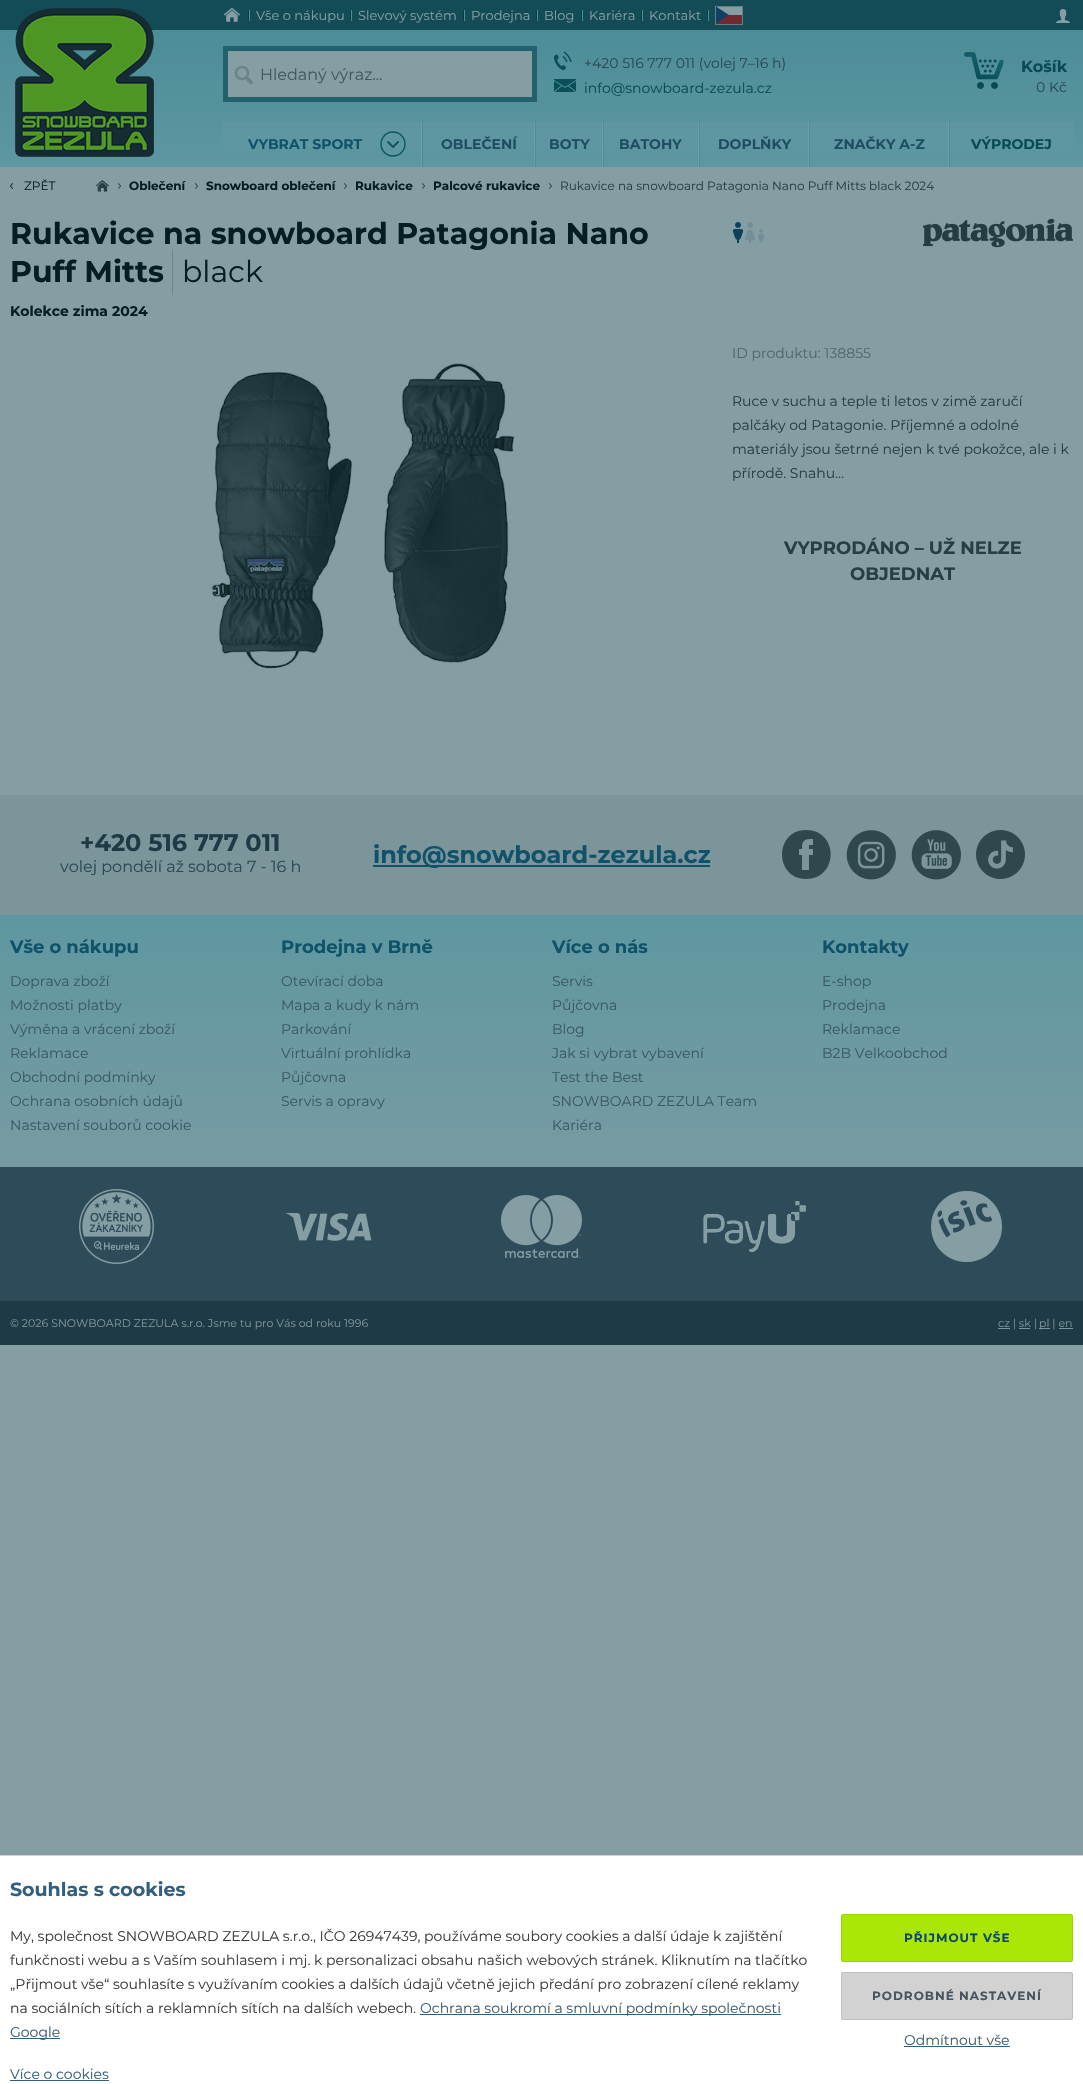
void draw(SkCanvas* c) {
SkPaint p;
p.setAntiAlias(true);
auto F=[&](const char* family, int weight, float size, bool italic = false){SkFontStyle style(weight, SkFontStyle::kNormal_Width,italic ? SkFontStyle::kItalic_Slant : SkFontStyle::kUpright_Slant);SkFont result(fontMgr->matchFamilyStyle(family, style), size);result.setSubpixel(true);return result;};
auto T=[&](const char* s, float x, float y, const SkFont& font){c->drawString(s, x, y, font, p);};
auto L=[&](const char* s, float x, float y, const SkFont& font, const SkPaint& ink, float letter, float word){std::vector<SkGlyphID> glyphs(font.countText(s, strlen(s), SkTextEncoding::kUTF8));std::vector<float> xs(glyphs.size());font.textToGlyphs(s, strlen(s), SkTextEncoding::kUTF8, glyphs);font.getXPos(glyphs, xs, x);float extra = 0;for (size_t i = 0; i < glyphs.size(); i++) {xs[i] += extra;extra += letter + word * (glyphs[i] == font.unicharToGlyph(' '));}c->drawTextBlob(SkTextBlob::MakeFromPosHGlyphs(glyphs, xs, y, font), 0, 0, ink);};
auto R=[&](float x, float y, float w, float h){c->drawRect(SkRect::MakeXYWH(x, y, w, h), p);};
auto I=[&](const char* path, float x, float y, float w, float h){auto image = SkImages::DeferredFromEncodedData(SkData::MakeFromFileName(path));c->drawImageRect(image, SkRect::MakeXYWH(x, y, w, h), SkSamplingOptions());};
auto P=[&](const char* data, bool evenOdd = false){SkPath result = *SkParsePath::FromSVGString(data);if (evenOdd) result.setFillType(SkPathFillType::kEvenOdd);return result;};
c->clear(0xff859ea4);
{
const SkColor colors[] = {0xff134b56,0xff134b56,0xff4c8d98,0xff5e97a1};
const float stops[] = {0,.18,.18,1};
const SkPoint ends[] = {{542,0}, {542,167}};
p.setShader(SkGradientShader::MakeLinear(ends, colors, stops, 4, SkTileMode::kClamp));
p.setAlpha(255);
}
R(0,0,1083,167);
I("1.png",223,8,17,14);
p.setShader(nullptr);
p.setColor(0xff0a3c48);
R(248,10,1,11);
p.setColor(0xff4c8d98);
R(249,10,1,11);
auto f1 = F("Montserrat",400,13);
p.setColor(0xff859ea4);
T("Vše o nákupu",256,20,f1);
p.setColor(0xff0a3c48);
R(350,10,1,11);
p.setColor(0xff4c8d98);
R(351,10,1,11);
p.setColor(0xff859ea4);
T("Slevový systém",358,20,f1);
p.setColor(0xff0a3c48);
R(463,10,1,11);
p.setColor(0xff4c8d98);
R(464,10,1,11);
p.setColor(0xff859ea4);
T("Prodejna",471,20,f1);
p.setColor(0xff0a3c48);
R(536,10,1,11);
p.setColor(0xff4c8d98);
R(537,10,1,11);
p.setColor(0xff859ea4);
T("Blog",544,20,f1);
p.setColor(0xff0a3c48);
R(581,10,1,11);
p.setColor(0xff4c8d98);
R(582,10,1,11);
p.setColor(0xff859ea4);
T("Kariéra",589,20,f1);
p.setColor(0xff0a3c48);
R(641,10,1,11);
p.setColor(0xff4c8d98);
R(642,10,1,11);
p.setColor(0xff859ea4);
T("Kontakt",649,20,f1);
p.setColor(0xff0a3c48);
R(707,10,1,11);
p.setColor(0xff4c8d98);
R(708,10,1,11);
p.setStroke(true);
p.setStrokeWidth(1);
p.setColor(0xff657e84);
c->drawRect(SkRect::MakeXYWH(715.5,6.5,27,18),p);
p.setStroke(false);
p.setColor(0xff712831);
R(716,15,26,9);
p.setColor(0xff859ea4);
R(716,7,26,8);
p.setColor(0xff0e4163);
c->drawPath(P("M729 15l-13-8.5v17z"),p);
I("2.png",1056,9,14,14);
I("3.png",15,8,139,149);
p.setColor(0xff859ea4);
c->drawRect(SkRect::MakeXYWH(225.5,48.5,309,51),p);
p.setStroke(true);
p.setStrokeWidth(5);
p.setColor(0xff23616c);
c->drawRect(SkRect::MakeXYWH(225.5,48.5,309,51),p);
p.setStrokeWidth(2.5);
p.setColor(0xff6b848a);
c->drawCircle(242,73,6,p);
p.setStrokeWidth(3.5);
p.setStrokeCap(SkPaint::kRound_Cap);
c->drawPath(P("M251 82.5l-3.5-4"),p);
auto f2 = F("Montserrat",400,16);
p.setStroke(false);
p.setColor(0xff40595f);
T("Hledaný výraz...",260,80,f2);
I("4.png",554,51,18,20);
auto f3 = F("Montserrat",400,14);
p.setColor(0xff294955);
T("+420 516 777 011 (volej 7–16 h)",584,68,f3);
I("5.png",554,79,22,13);
p.setColor(0xff094b55);
T("info@snowboard-zezula.cz",584,93,f3);
I("6.png",964,52,40,37);
auto f4 = F("Montserrat",700,16);
T("Košík",1021,72,f4);
p.setColor(0xff294955);
T("0 Kč",1036,92,f3);
p.setColor(0xff5e97a1);
R(223,122,850,26);
p.setColor(0xff789ba2);
R(421,122,1,45);
auto f5 = F("Montserrat",700,14);
p.setColor(0xff10526a);
T("VYBRAT SPORT",248,149,f5);
p.setStroke(true);
p.setStrokeWidth(2);
p.setStrokeJoin(SkPaint::kRound_Join);
p.setColor(0xff0d5660);
c->drawPath(P("M398 142l-5 5l-5-5"),p);
p.setStrokeWidth(1.4);
p.setStrokeCap(SkPaint::kButt_Cap);
p.setStrokeJoin(SkPaint::kMiter_Join);
p.setColor(0xff0a5660);
c->drawCircle(393,144,12,p);
p.setStroke(false);
p.setColor(0xff789ba2);
R(534,122,1,45);
p.setColor(0xff4c8d98);
R(422,122,1,45);
p.setColor(0xff1f4e64);
T("OBLEČENÍ",441,149,f5);
p.setColor(0xff789ba2);
R(602,122,1,45);
p.setColor(0xff4c8d98);
R(535,122,1,45);
p.setColor(0xff1f4e64);
T("BOTY",549,149,f5);
p.setColor(0xff789ba2);
R(698,122,1,45);
p.setColor(0xff4c8d98);
R(603,122,1,45);
p.setColor(0xff1f4e64);
T("BATOHY",619,149,f5);
p.setColor(0xff789ba2);
R(808,122,1,45);
p.setColor(0xff4c8d98);
R(699,122,1,45);
p.setColor(0xff1f4e64);
T("DOPLŇKY",718,149,f5);
p.setColor(0xff789ba2);
R(948,122,1,45);
p.setColor(0xff4c8d98);
R(809,122,1,45);
p.setColor(0xff1f4e64);
T("ZNAČKY A-Z",834,149,f5);
p.setColor(0xff4c8d98);
R(949,122,1,45);
p.setColor(0xff094b55);
T("VÝPRODEJ",971,149,f5);
I("7.png",10,183,3,6);
auto f6 = F("Montserrat",400,12);
p.setColor(0xff051e24);
T("ZPĚT",24,190,f6);
I("8.png",95,180,14,12);
{
const SkColor colors[] = {0xff859ea4,0x00859ea4};
const float stops[] = {0,1};
const SkPoint ends[] = {{85,186}, {100,186}};
p.setShader(SkGradientShader::MakeLinear(ends, colors, stops, 2, SkTileMode::kClamp));
p.setAlpha(255);
}
R(95,183,5,9);
I("9.png",118,183,3,6);
auto f7 = F("Montserrat",700,12);
p.setShader(nullptr);
p.setColor(0xff051e24);
T("Oblečení",129,190,f7);
I("9.png",195,183,3,6);
T("Snowboard oblečení",206,190,f7);
I("9.png",344,183,3,6);
T("Rukavice",355,190,f7);
I("9.png",422,183,3,6);
T("Palcové rukavice",433,190,f7);
I("9.png",549,183,3,6);
p.setColor(0xff263f45);
T("Rukavice na snowboard Patagonia Nano Puff Mitts black 2024",560,190,f6);
auto f8 = F("Montserrat",700,30);
p.setColor(0xff051e24);
T("Rukavice na snowboard Patagonia Nano",10,244,f8);
T("Puff Mitts",10,282,f8);
p.setColor(0xff6e878d);
R(172,249,1,46);
auto f9 = F("Montserrat",400,30);
p.setColor(0xff051e24);
T("black",182,282,f9);
T("Kolekce zima 2024",10,316,f5);
I("10.png",732,222,33,21);
I("11.png",923,218,150,30);
I("12.png",210,363,305,306);
p.setColor(0xff4f686e);
T("ID produktu: 138855",732,358,f3);
p.setColor(0xff263f45);
T("Ruce v suchu a teple ti letos v zimě zaručí",732,406,f3);
T("palčáky od Patagonie. Příjemné a odolné",732,430,f3);
T("materiály jsou šetrné nejen k tvé pokožce, ale i k",732,454,f3);
T("přírodě. Snahu…",732,478,f3);
auto f10 = F("Montserrat",700,18);
T("VYPRODÁNO – UŽ NELZE",784,554,f10);
T("OBJEDNAT",850,580,f10);
p.setColor(0xff7c959b);
R(0,795,1083,120);
auto f11 = F("Montserrat",700,24);
p.setColor(0xff1f3a47);
T("+420 516 777 011",80,851,f11);
p.setColor(0xff294955);
T("volej pondělí až sobota 7 - 16 h",60,872,f2);
p.setColor(0xff10526a);
R(373,865,337,2);
T("info@snowboard-zezula.cz",373,863,f11);
p.setColor(0xff2f484e);
c->drawPath(P("M806 830c-32 0-32 49 0 49c33 0 33-49 0-49zm7 25h-4v15h-7v-15h-3v-6h3c0-9 2-10 11-10v6c-5 0-4-1-4 4h4z"),p);
I("13.png",846,830,50,50);
I("14.png",911,830,50,50);
I("15.png",976,830,49,49);
{
const SkColor colors[] = {0xff5e97a1,0xff789ba2};
const float stops[] = {0,1};
const SkPoint ends[] = {{542,915}, {542,1167}};
p.setShader(SkGradientShader::MakeLinear(ends, colors, stops, 2, SkTileMode::kClamp));
p.setAlpha(255);
}
R(0,915,1083,252);
p.setShader(nullptr);
p.setColor(0xff10526a);
T("Vše o nákupu",10,953,f10);
p.setColor(0xff395966);
T("Doprava zboží",10,986,f3);
T("Možnosti platby",10,1010,f3);
T("Výměna a vrácení zboží",10,1034,f3);
T("Reklamace",10,1058,f3);
T("Obchodní podmínky",10,1082,f3);
T("Ochrana osobních údajů",10,1106,f3);
T("Nastavení souborů cookie",10,1130,f3);
p.setColor(0xff10526a);
T("Prodejna v Brně",281,953,f10);
p.setColor(0xff395966);
T("Otevírací doba",281,986,f3);
T("Mapa a kudy k nám",281,1010,f3);
T("Parkování",281,1034,f3);
T("Virtuální prohlídka",281,1058,f3);
T("Půjčovna",281,1082,f3);
T("Servis a opravy",281,1106,f3);
p.setColor(0xff10526a);
T("Více o nás",552,953,f10);
p.setColor(0xff395966);
T("Servis",552,986,f3);
T("Půjčovna",552,1010,f3);
T("Blog",552,1034,f3);
T("Jak si vybrat vybavení",552,1058,f3);
T("Test the Best",552,1082,f3);
T("SNOWBOARD ZEZULA Team",552,1106,f3);
T("Kariéra",552,1130,f3);
p.setColor(0xff10526a);
T("Kontakty",822,953,f10);
p.setColor(0xff395966);
T("E-shop",822,986,f3);
T("Prodejna",822,1010,f3);
T("Reklamace",822,1034,f3);
T("B2B Velkoobchod",822,1058,f3);
p.setColor(0xff2d4b58);
R(0,1167,1083,134);
I("16.png",79,1189,75,75);
I("17.png",285,1213,87,28);
I("18.png",501,1195,81,63);
I("19.png",703,1201,103,52);
I("20.png",931,1191,71,71);
p.setColor(0xff1f3a47);
R(0,1301,1083,44);
auto f12 = F("Montserrat",400,11);
p.setColor(0xff7c959b);
T("© 2026 SNOWBOARD ZEZULA s.r.o. Jsme tu pro Vás od roku 1996",10,1327,f12);
R(998,1328,12,1);
T("cz | sk |",998,1327,f12);
R(1039,1328,11,1);
T("pl | en",1039,1327,f12);
R(1019,1328,11,1);
R(1059,1328,14,1);
p.setColor(0xffffffff);
R(0,1856,1083,228);
p.setColor(0xffd2d2d2);
R(0,1855,1083,1);
auto f13 = F("Montserrat",700,19);
p.setColor(0xff335f7f);
T("Souhlas s cookies",10,1896,f13);
p.setColor(0xff3d3d3d);
T("My, společnost SNOWBOARD ZEZULA s.r.o., IČO 26947439, používáme soubory cookies a další údaje k zajištění",10,1941,f3);
T("funkčnosti webu a s Vaším souhlasem i mj. k personalizaci obsahu našich webových stránek. Kliknutím na tlačítko",10,1965,f3);
T("„Přijmout vše“ souhlasíte s využívaním cookies a dalších údajů včetně jejich předání pro zobrazení cílené reklamy",10,1989,f3);
T("na sociálních sítích a reklamních sítích na dalších webech.",10,2013,f3);
p.setColor(0xff335f7f);
R(420,2014,361,1);
T("Ochrana soukromí a smluvní podmínky společnosti",420,2013,f3);
R(10,2038,50,1);
T("Google",10,2037,f3);
T("Více o cookies",10,2079,f3);
R(10,2080,99,1);
p.setColor(0xffaae707);
c->drawRoundRect(SkRect::MakeXYWH(841.5,1914.5,231,47),1.5,1.5,p);
p.setStroke(true);
p.setStrokeWidth(1);
p.setColor(0xff9cd601);
c->drawRoundRect(SkRect::MakeXYWH(841.5,1914.5,231,47),1.5,1.5,p);
p.setStroke(false);
p.setColor(0xff0e496d);
L("PŘIJMOUT VŠE",904,1942,f7,p,1,0);
p.setColor(0xffd2d2d2);
c->drawRoundRect(SkRect::MakeXYWH(841.5,1972.5,231,47),1.5,1.5,p);
p.setStroke(true);
p.setColor(0xffbfbfbf);
c->drawRoundRect(SkRect::MakeXYWH(841.5,1972.5,231,47),1.5,1.5,p);
p.setStroke(false);
p.setColor(0xff485561);
L("PODROBNÉ NASTAVENÍ",872,2000,f7,p,1,0);
p.setColor(0xff335f7f);
T("Odmítnout vše",904,2045,f3);
R(904,2046,106,1);
}
